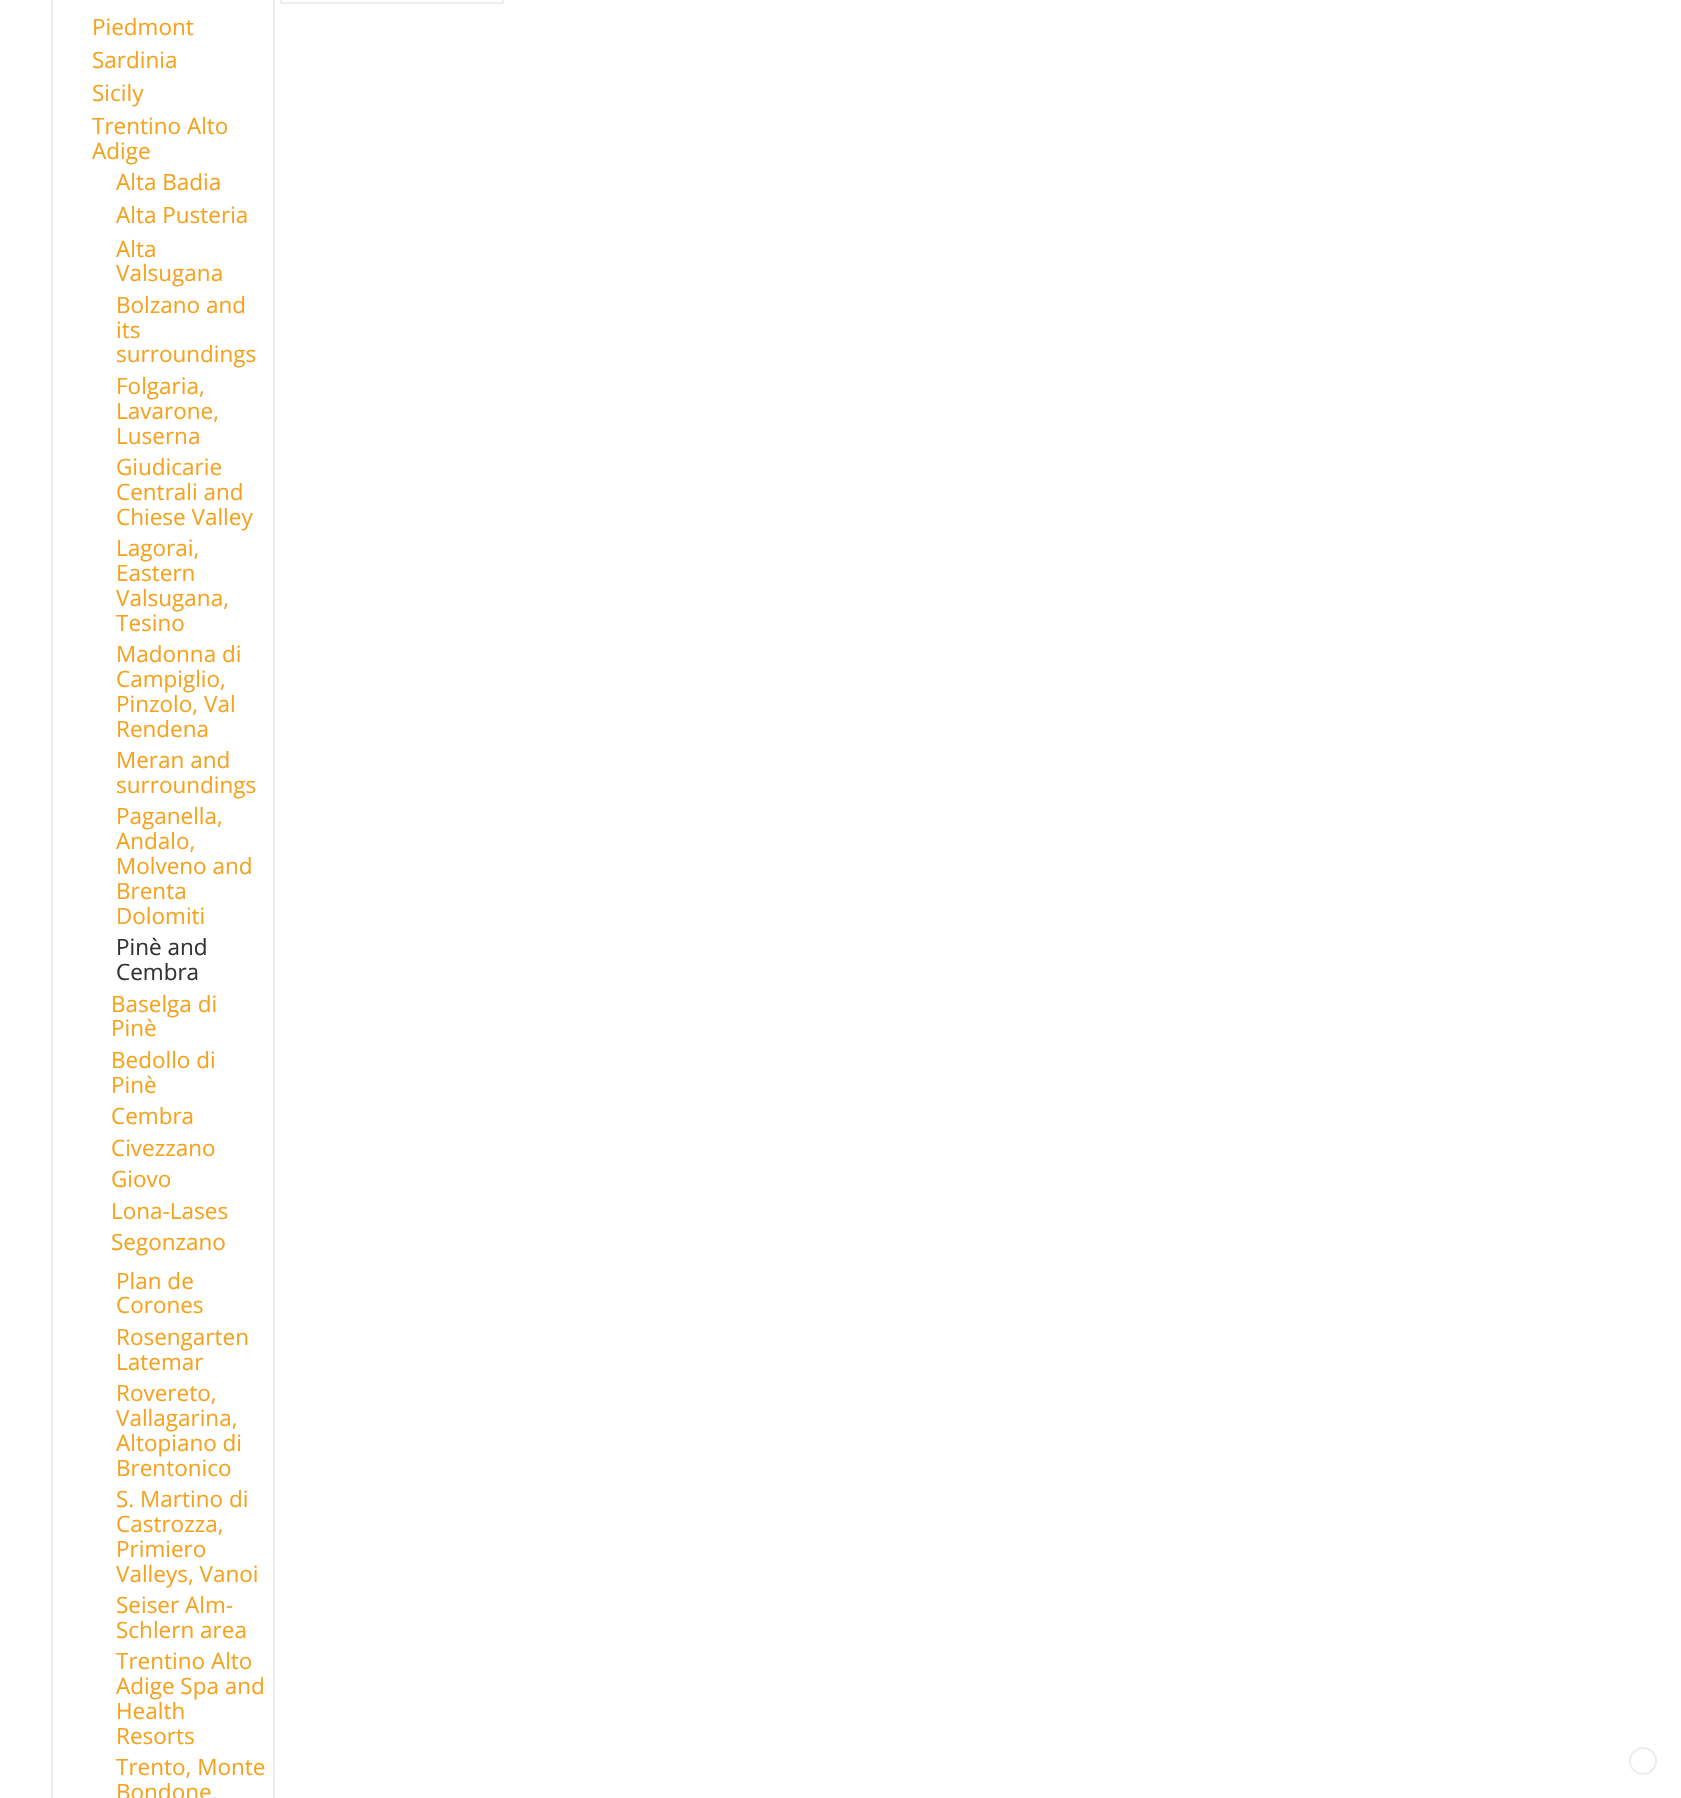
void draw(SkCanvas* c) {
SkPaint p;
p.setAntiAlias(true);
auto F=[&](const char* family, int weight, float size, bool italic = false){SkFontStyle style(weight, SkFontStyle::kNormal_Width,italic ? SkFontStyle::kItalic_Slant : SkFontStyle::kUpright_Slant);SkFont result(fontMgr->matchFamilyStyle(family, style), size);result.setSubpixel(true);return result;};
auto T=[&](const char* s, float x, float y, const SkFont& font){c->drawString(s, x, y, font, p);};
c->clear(0xffffffff);
p.setStroke(true);
p.setStrokeWidth(2);
p.setColor(0xffededed);
c->drawRect(SkRect::MakeXYWH(281,-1,222,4),p);
c->drawRect(SkRect::MakeXYWH(52,-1,222,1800),p);
auto f1 = F("Open Sans",400,22.5);
p.setStroke(false);
p.setColor(0xfff4a321);
T("Piedmont",92,35,f1);
T("Sardinia",92,68,f1);
T("Sicily",92,101,f1);
T("Trentino Alto",92,134,f1);
T("Adige",92,159,f1);
T("Alta Badia",116,190,f1);
T("Alta Pusteria",116,223,f1);
T("Alta",116,257,f1);
T("Valsugana",116,281,f1);
T("Bolzano and",116,313,f1);
T("its",116,338,f1);
T("surroundings",116,362,f1);
T("Folgaria,",116,394,f1);
T("Lavarone,",116,419,f1);
T("Luserna",116,444,f1);
T("Giudicarie",116,475,f1);
T("Centrali and",116,500,f1);
T("Chiese Valley",116,525,f1);
T("Lagorai,",116,556,f1);
T("Eastern",116,581,f1);
T("Valsugana,",116,606,f1);
T("Tesino",116,631,f1);
T("Madonna di",116,662,f1);
T("Campiglio,",116,687,f1);
T("Pinzolo, Val",116,712,f1);
T("Rendena",116,737,f1);
T("Meran and",116,768,f1);
T("surroundings",116,793,f1);
T("Paganella,",116,824,f1);
T("Andalo,",116,849,f1);
T("Molveno and",116,874,f1);
T("Brenta",116,899,f1);
T("Dolomiti",116,924,f1);
p.setColor(0xff333333);
T("Pinè and",116,955,f1);
T("Cembra",116,980,f1);
p.setColor(0xfff4a321);
T("Baselga di",111,1012,f1);
T("Pinè",111,1036,f1);
T("Bedollo di",111,1068,f1);
T("Pinè",111,1093,f1);
T("Cembra",111,1124,f1);
T("Civezzano",111,1156,f1);
T("Giovo",111,1187,f1);
T("Lona-Lases",111,1219,f1);
T("Segonzano",111,1250,f1);
T("Plan de",116,1289,f1);
T("Corones",116,1313,f1);
T("Rosengarten",116,1345,f1);
T("Latemar",116,1370,f1);
T("Rovereto,",116,1401,f1);
T("Vallagarina,",116,1426,f1);
T("Altopiano di",116,1451,f1);
T("Brentonico",116,1476,f1);
T("S. Martino di",116,1507,f1);
T("Castrozza,",116,1532,f1);
T("Primiero",116,1557,f1);
T("Valleys, Vanoi",116,1582,f1);
T("Seiser Alm-",116,1613,f1);
T("Schlern area",116,1638,f1);
T("Trentino Alto",116,1669,f1);
T("Adige Spa and",116,1694,f1);
T("Health",116,1719,f1);
T("Resorts",116,1744,f1);
T("Trento, Monte",116,1775,f1);
T("Bondone,",116,1800,f1);
p.setStroke(true);
p.setColor(0xffededed);
c->drawCircle(1643,1761,13,p);
}
